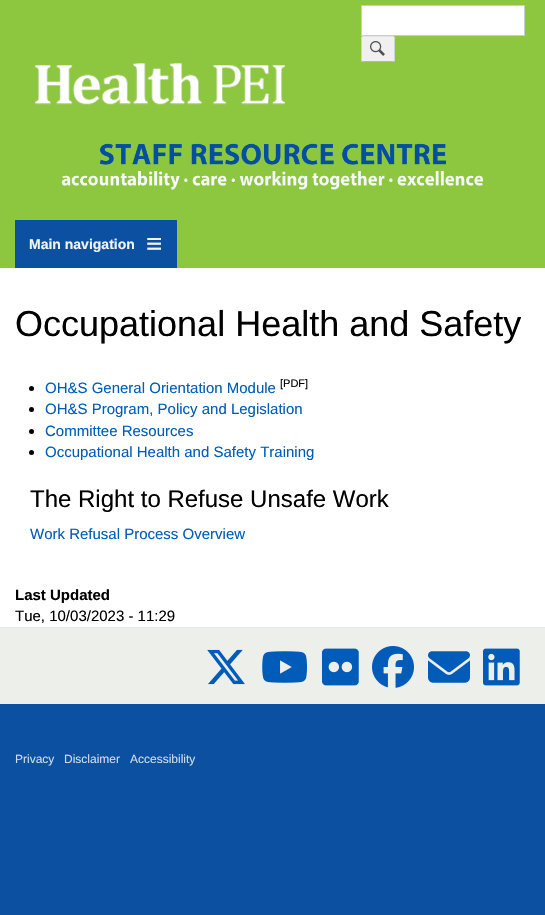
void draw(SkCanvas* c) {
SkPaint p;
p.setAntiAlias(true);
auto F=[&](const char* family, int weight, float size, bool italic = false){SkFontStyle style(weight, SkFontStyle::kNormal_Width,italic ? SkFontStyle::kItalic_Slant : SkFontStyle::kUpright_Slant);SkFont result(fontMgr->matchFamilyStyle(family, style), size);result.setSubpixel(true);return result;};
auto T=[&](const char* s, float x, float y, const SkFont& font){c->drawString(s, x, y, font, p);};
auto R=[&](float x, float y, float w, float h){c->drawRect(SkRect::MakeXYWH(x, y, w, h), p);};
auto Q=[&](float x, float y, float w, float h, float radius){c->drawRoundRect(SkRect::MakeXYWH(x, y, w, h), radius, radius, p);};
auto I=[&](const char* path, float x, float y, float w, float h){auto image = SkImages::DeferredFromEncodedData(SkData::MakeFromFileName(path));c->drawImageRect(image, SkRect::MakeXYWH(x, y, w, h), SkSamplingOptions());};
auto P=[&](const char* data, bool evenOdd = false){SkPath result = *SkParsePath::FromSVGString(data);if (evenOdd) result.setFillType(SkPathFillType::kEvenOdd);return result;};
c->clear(0xff0c50a1);
p.setColor(0xffffffff);
R(0,268,545,359);
p.setColor(0xff8dc73f);
R(0,0,545,268);
p.setColor(0xffffffff);
c->drawRect(SkRect::MakeXYWH(361.5,5.5,163,30),p);
p.setStroke(true);
p.setStrokeWidth(1);
p.setColor(0xffcccccc);
c->drawRect(SkRect::MakeXYWH(361.5,5.5,163,30),p);
p.setStroke(false);
p.setColor(0xfff0f0f0);
Q(361,36,34,26,2.5);
I("1.png",370,41,15,15);
p.setStroke(true);
p.setColor(0xffe4e4e4);
c->drawPath(P("M362 37l1.5-.5h29l1.5 .5"),p);
p.setColor(0xffd2d2d2);
c->drawPath(P("M394 37c.5 .5 .5 1 .5 1.5v21c0 .5 0 1-.5 1.5"),p);
p.setColor(0xffb4b4b4);
c->drawPath(P("M394 61l-1.5 .5h-29l-1.5-.5"),p);
p.setColor(0xffd2d2d2);
c->drawPath(P("M362 61c-.5-.5-.5-1-.5-1.5v-21c0-.5 0-1 .5-1.5"),p);
I("2.png",35,63,250,42);
I("3.png",61,143,422,47);
p.setStroke(false);
p.setColor(0xff0c50a1);
R(15,220,162,48);
auto f1 = F("Liberation Sans",700,14);
p.setColor(0xfff3f3f3);
T("Main navigation",29,249,f1);
auto f2 = F("Liberation Sans",700,28);
T("≡",146,253,f2);
auto f3 = F("Liberation Sans",400,36);
p.setColor(0xff000000);
T("Occupational Health and Safety",15,336,f3);
c->drawCircle(31.5,388.5,2.5,p);
auto f4 = F("Liberation Sans",400,15);
p.setColor(0xff005cb8);
T("OH&S General Orientation Module",45,393,f4);
auto f5 = F("Liberation Sans",400,11);
p.setColor(0xff000000);
T("[PDF]",280,387,f5);
c->drawCircle(31.5,409.5,2.5,p);
p.setColor(0xff005cb8);
T("OH&S Program, Policy and Legislation",45,414,f4);
p.setColor(0xff000000);
c->drawCircle(31.5,431.5,2.5,p);
p.setColor(0xff005cb8);
T("Committee Resources",45,436,f4);
p.setColor(0xff000000);
c->drawCircle(31.5,452.5,2.5,p);
p.setColor(0xff005cb8);
T("Occupational Health and Safety Training",45,457,f4);
auto f6 = F("Liberation Sans",400,24);
p.setColor(0xff000000);
T("The Right to Refuse Unsafe Work",30,507,f6);
p.setColor(0xff005cb8);
T("Work Refusal Process Overview",30,539,f4);
auto f7 = F("Liberation Sans",700,15);
p.setColor(0xff000000);
T("Last Updated",15,600,f7);
T("Tue, 10/03/2023 - 11:29",15,621,f4);
p.setColor(0xffedefeb);
R(0,628,545,76);
p.setColor(0xffe7e7e7);
R(0,627,545,1);
I("4.png",207,649,38,36);
I("5.png",262,651,45,32);
I("6.png",322,648,37,38);
I("7.png",372,646,42,42);
I("8.png",428,651,42,32);
I("9.png",483,648,37,38);
auto f8 = F("Liberation Sans",400,12);
p.setColor(0xffcedcec);
T("Privacy",15,763,f8);
T("Disclaimer",64,763,f8);
T("Accessibility",130,763,f8);
}
